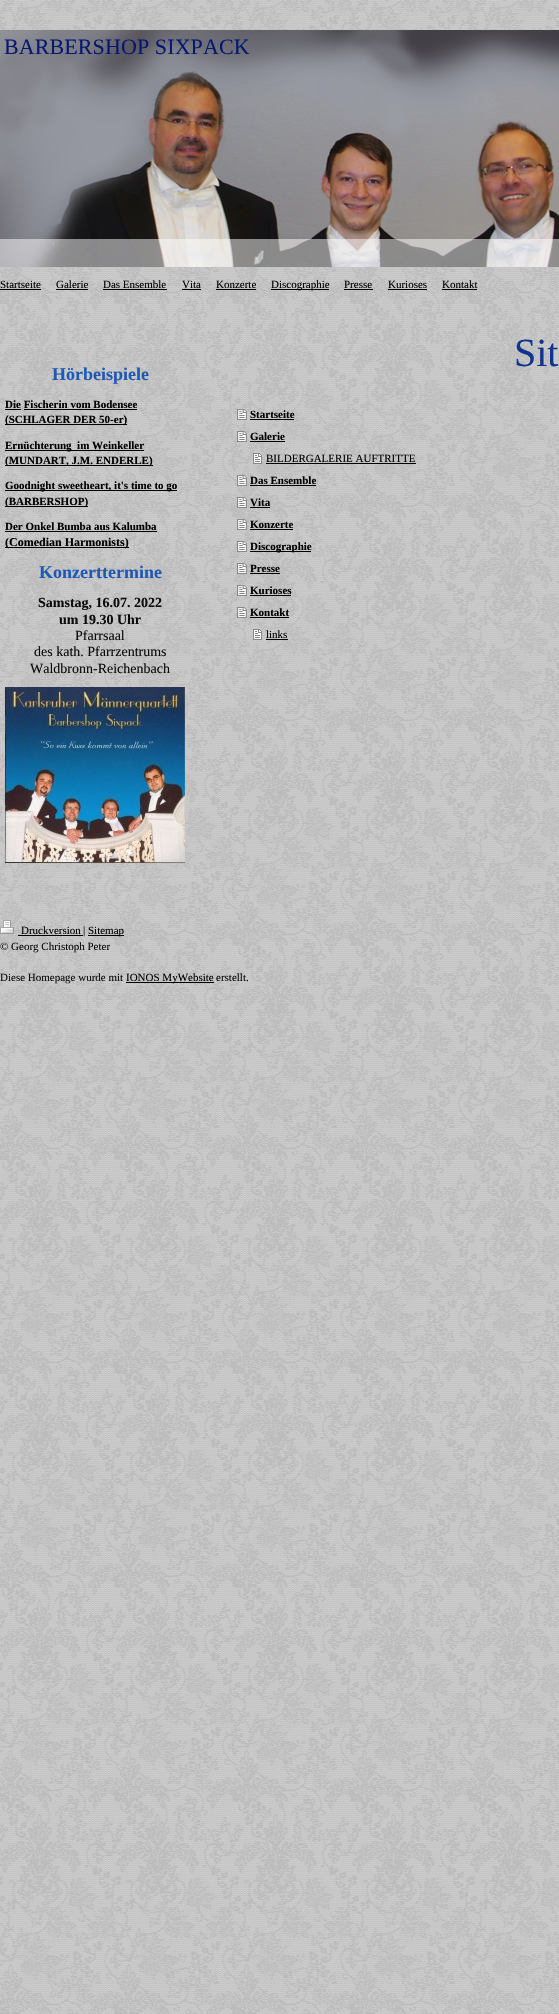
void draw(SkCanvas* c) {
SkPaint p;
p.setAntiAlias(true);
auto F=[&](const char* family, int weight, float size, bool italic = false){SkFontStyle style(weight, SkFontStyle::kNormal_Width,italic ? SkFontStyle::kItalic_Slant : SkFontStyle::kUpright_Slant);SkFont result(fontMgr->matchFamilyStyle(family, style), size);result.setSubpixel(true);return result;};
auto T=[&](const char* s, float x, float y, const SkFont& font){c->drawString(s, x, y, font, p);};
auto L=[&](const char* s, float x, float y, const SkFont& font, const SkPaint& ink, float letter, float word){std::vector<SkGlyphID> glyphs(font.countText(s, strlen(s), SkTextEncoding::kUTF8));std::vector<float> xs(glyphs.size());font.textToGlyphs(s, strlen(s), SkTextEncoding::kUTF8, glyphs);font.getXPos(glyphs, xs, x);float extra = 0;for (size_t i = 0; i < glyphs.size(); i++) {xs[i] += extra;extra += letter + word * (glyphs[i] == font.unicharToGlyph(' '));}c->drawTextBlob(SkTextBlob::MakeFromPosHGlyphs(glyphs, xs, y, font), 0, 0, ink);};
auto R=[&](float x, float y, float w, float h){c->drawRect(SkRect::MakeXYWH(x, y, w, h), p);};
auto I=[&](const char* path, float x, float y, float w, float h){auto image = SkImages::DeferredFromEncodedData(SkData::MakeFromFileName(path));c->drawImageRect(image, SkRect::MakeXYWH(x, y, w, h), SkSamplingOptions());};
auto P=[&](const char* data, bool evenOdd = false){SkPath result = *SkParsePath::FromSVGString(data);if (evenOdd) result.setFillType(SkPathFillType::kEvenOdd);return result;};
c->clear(0xffffffff);
I("1.png",0,0,559,2014);
I("2.png",0,30,559,237);
auto f1 = F("Liberation Serif",400,22);
p.setColor(0xff051972);
L("BARBERSHOP SIXPACK",4,54,f1,p,.1,0);
p.setColor(0x80ffffff);
R(0,239,559,28);
auto f2 = F("Liberation Serif",400,11);
p.setColor(0xff000000);
T("Startseite",0,288,f2);
R(0,289,41,1);
T("Galerie",56,288,f2);
R(56,289,32,1);
T("Das Ensemble",103,288,f2);
R(103,289,64,1);
T("Vita",182,288,f2);
R(182,289,19,1);
T("Konzerte",216,288,f2);
R(216,289,40,1);
R(271,289,58,1);
T("Discographie",271,288,f2);
T("Presse",344,288,f2);
R(344,289,29,1);
T("Kurioses",388,288,f2);
R(388,289,39,1);
T("Kontakt",442,288,f2);
R(442,289,35,1);
p.setStroke(true);
p.setStrokeWidth(1);
p.setColor(0xffcccccc);
p.setPathEffect(SkDashPathEffect::Make({{1,1}}, 0));
c->drawPath(P("M5 346.5h190"),p);
p.setPathEffect(nullptr);
auto f3 = F("Liberation Serif",700,18);
p.setStroke(false);
p.setColor(0xff1e5ab5);
T("Hörbeispiele",52,380,f3);
auto f4 = F("Liberation Serif",700,11);
p.setColor(0xff000000);
T("Die Fischerin vom Bodensee",5,408,f4);
R(5,409,16,1);
R(5,424,122,1);
T("(SCHLAGER DER 50-er)",5,423,f4);
R(24,409,113,1);
R(5,450,139,1);
T("Ernüchterung  im Weinkeller",5,449,f4);
R(5,465,148,1);
T("(MUNDART, J.M. ENDERLE)",5,464,f4);
R(5,490,172,1);
T("Goodnight sweetheart, it's time to go",5,489,f4);
R(5,506,83,1);
T("(BARBERSHOP)",5,505,f4);
T("Der Onkel Bumba aus Kalumba",5,530,f4);
R(5,531,152,1);
R(5,547,124,1);
auto f5 = F("Liberation Serif",700,12);
T("(Comedian Harmonists)",5,546,f5);
p.setColor(0xff1e5ab5);
T("Konzerttermine",39,578,f3);
auto f6 = F("Liberation Serif",700,14);
p.setColor(0xff0c0b0b);
T("Samstag, 16.07. 2022",38,607,f6);
T("um 19.30 Uhr",59,624,f6);
auto f7 = F("Liberation Serif",400,14);
T("Pfarrsaal",75,640,f7);
T("des kath. Pfarrzentrums",34,656,f7);
T("Waldbronn-Reichenbach",30,673,f7);
I("3.png",5,687,180,176);
p.setStroke(true);
p.setColor(0xffcccccc);
p.setPathEffect(SkDashPathEffect::Make({{1,1}}, 0));
c->drawPath(P("M5 879.5h190"),p);
p.setPathEffect(nullptr);
auto f8 = F("Liberation Serif",400,40);
p.setStroke(false);
p.setColor(0xff0d358f);
T("Sit",514,366,f8);
I("4.png",237,409,10,11);
p.setColor(0xff000000);
T("Startseite",250,418,f4);
R(250,419,44,1);
I("5.png",237,431,10,11);
T("Galerie",250,440,f4);
R(250,441,35,1);
I("6.png",253,453,9,11);
T("BILDERGALERIE AUFTRITTE",266,462,f2);
R(266,463,150,1);
I("7.png",237,475,10,11);
T("Das Ensemble",250,484,f4);
R(250,485,66,1);
I("8.png",237,497,10,11);
T("Vita",250,506,f4);
R(250,507,20,1);
I("9.png",237,519,10,11);
T("Konzerte",250,528,f4);
R(250,529,43,1);
I("10.png",237,541,10,11);
R(250,551,61,1);
T("Discographie",250,550,f4);
I("11.png",237,563,10,11);
T("Presse",250,572,f4);
R(250,573,30,1);
I("12.png",237,585,10,11);
T("Kurioses",250,594,f4);
R(250,595,41,1);
I("12.png",237,607,10,11);
T("Kontakt",250,616,f4);
R(250,617,39,1);
I("13.png",253,629,9,11);
T("links",266,638,f2);
R(266,639,22,1);
I("14.png",0,920,14,14);
T("Druckversion",21,934,f2);
R(18,935,65,1);
p.setColor(0xff0c0b0b);
T("|",83,934,f2);
p.setColor(0xff000000);
R(88,935,36,1);
T("Sitemap",88,934,f2);
p.setColor(0xff0c0b0b);
T("© Georg Christoph Peter",0,950,f2);
T("Diese Homepage wurde mit",0,981,f2);
p.setColor(0xff000000);
R(126,982,88,1);
T("IONOS MyWebsite",126,981,f2);
p.setColor(0xff0c0b0b);
T("erstellt.",216,981,f2);
}
